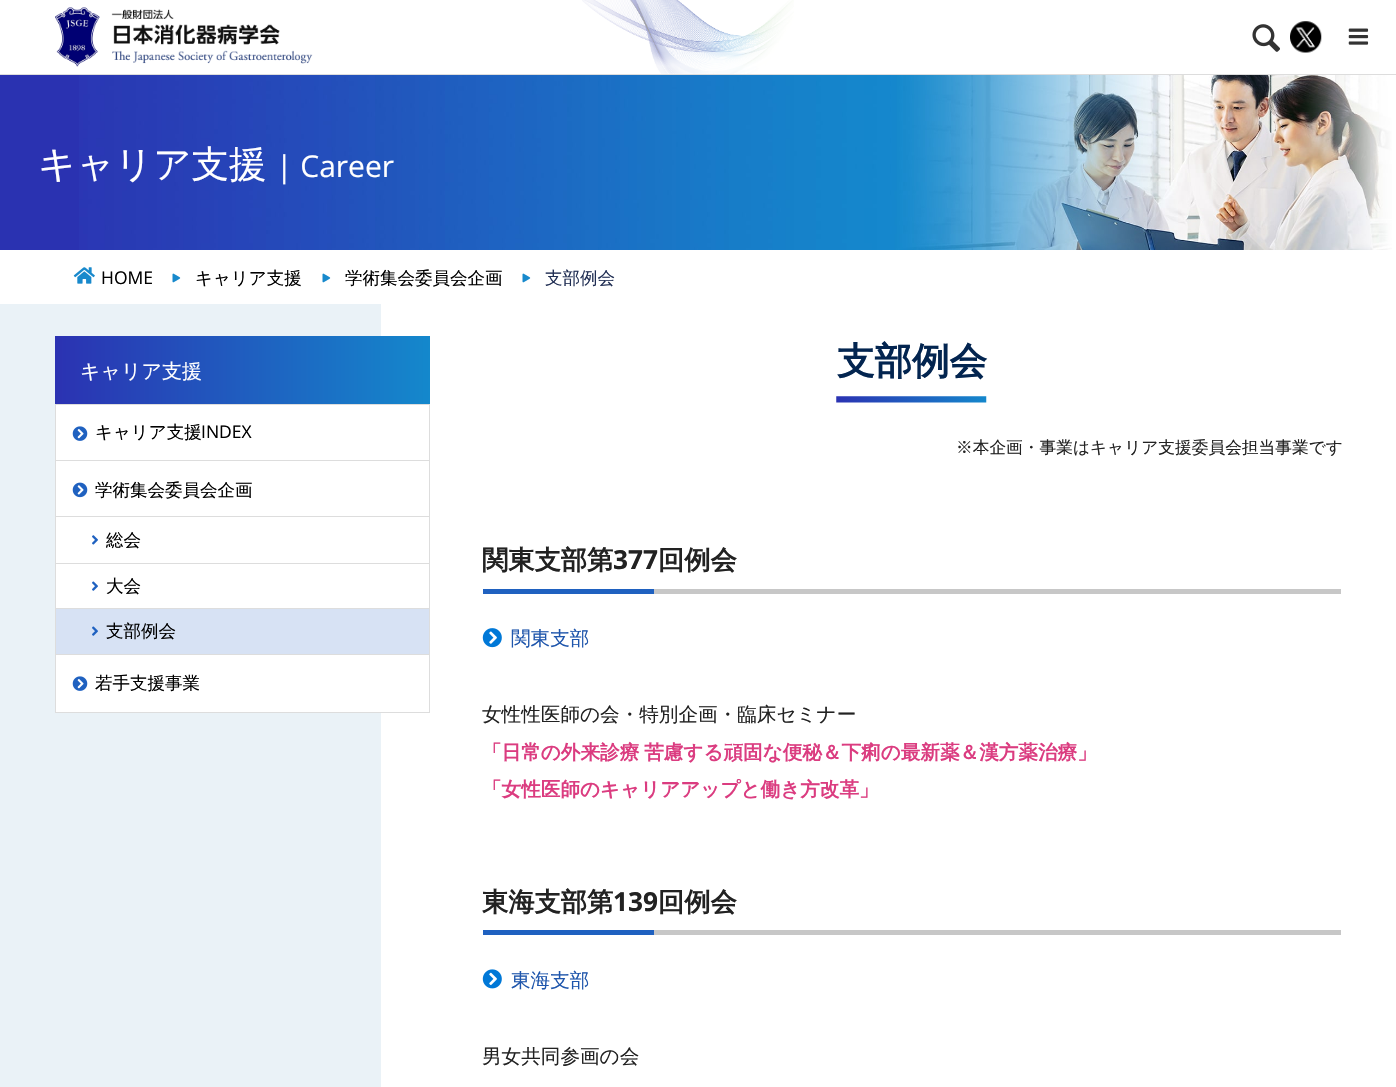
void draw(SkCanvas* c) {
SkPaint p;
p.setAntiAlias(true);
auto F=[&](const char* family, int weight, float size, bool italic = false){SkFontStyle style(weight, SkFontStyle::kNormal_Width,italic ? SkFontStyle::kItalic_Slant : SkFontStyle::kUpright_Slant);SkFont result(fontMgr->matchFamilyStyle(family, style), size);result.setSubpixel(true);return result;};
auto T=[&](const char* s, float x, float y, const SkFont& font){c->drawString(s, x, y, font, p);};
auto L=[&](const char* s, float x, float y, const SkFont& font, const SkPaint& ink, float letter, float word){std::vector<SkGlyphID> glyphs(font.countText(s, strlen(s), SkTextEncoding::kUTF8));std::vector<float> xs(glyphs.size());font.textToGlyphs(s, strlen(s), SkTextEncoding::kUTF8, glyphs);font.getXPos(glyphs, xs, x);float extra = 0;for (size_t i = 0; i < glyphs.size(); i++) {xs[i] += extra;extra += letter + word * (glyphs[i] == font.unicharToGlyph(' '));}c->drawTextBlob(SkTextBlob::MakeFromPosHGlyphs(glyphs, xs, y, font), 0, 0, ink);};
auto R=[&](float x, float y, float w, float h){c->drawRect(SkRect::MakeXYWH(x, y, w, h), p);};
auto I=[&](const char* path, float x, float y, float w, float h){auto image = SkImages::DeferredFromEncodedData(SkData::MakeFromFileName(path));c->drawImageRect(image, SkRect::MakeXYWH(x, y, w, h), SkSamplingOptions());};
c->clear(0xffffffff);
p.setColor(0xffdddddd);
R(0,74,1396,1);
I("1.png",582,0,212,74);
I("2.png",55,7,258,60);
I("3.png",1252,24,28,28);
I("4.png",1290,21,32,32);
I("5.png",1348,28,21,17);
p.setColor(0xffeaf2f7);
R(0,304,381,783);
p.setColor(0xff2a32b1);
R(0,75,79,175);
I("6.png",79,75,1313,175);
auto f1 = F("WenQuanYi Zen Hei",500,37.5);
p.setColor(0xffffffff);
T("キャリア支援",38,177,f1);
auto f2 = F("Open Sans",400,30);
T("| Career",276,177,f2);
I("7.png",73,267,22,17);
auto f3 = F("Open Sans",400,17.5);
p.setColor(0xff000000);
T("HOME",101,284,f3);
I("8.png",172,273,9,10);
auto f4 = F("WenQuanYi Zen Hei",500,17.5);
T("キャリア支援",195,284,f4);
I("8.png",322,273,9,10);
T("学術集会委員会企画",345,284,f4);
I("8.png",522,273,9,10);
p.setColor(0xff202e53);
T("支部例会",545,284,f4);
{
const SkColor colors[] = {0xff2b32b2,0xff1488cc};
const float stops[] = {0,1};
const SkPoint ends[] = {{55,371}, {430,371}};
p.setShader(SkGradientShader::MakeLinear(ends, colors, stops, 2, SkTileMode::kClamp));
p.setAlpha(255);
}
R(55,336,375,68);
auto f5 = F("WenQuanYi Zen Hei",500,20);
p.setShader(nullptr);
p.setColor(0xffffffff);
T("キャリア支援",80,378,f5);
R(56,405,325,55);
p.setStroke(true);
p.setStrokeWidth(1);
p.setColor(0xffdddddd);
c->drawRect(SkRect::MakeXYWH(55.5,404.5,374,56),p);
I("9.png",72,426,16,15);
p.setStroke(false);
p.setColor(0xff000000);
T("キャリア支援",95,438,f4);
T("INDEX",201,438,f3);
p.setColor(0xffffffff);
R(56,461,325,147);
p.setStroke(true);
p.setColor(0xffdddddd);
c->drawRect(SkRect::MakeXYWH(55.5,460.5,374,194),p);
I("10.png",72,482,16,16);
p.setStroke(false);
p.setColor(0xff000000);
T("学術集会委員会企画",95,496,f4);
p.setColor(0xffdddddd);
R(56,516,373,1);
I("11.png",92,535,6,10);
p.setColor(0xff000000);
T("総会",106,546,f4);
p.setColor(0xffdddddd);
R(56,563,373,1);
I("12.png",92,581,6,10);
p.setColor(0xff000000);
T("大会",106,592,f4);
p.setColor(0xffd7e2f4);
R(56,609,373,45);
p.setColor(0xffdddddd);
R(56,608,373,1);
I("13.png",92,626,6,10);
p.setColor(0xff000000);
T("支部例会",106,637,f4);
p.setColor(0xffffffff);
R(56,655,325,57);
p.setStroke(true);
p.setColor(0xffdddddd);
c->drawRect(SkRect::MakeXYWH(55.5,654.5,374,58),p);
I("9.png",72,676,16,15);
p.setStroke(false);
p.setColor(0xff000000);
T("若手支援事業",95,689,f4);
I("14.png",836,396,151,7);
auto f6 = F("WenQuanYi Zen Hei",700,37.5);
p.setColor(0xff032550);
T("支部例会",837,374,f6);
auto f7 = F("WenQuanYi Zen Hei",500,16.7);
p.setColor(0xff222222);
T("※本企画・事業はキャリア支援委員会担当事業です",956,453,f7);
p.setColor(0xffc7c7c7);
R(654,589,687,5);
auto f8 = F("WenQuanYi Zen Hei",700,26.25);
p.setColor(0xff222222);
T("関東支部第",482,569,f8);
auto f9 = F("Open Sans",700,26.25);
T("377",613,569,f9);
T("回例会",658,569,f8);
p.setColor(0xff1f61c0);
R(483,589,171,5);
I("15.png",482,628,20,20);
auto f10 = F("WenQuanYi Zen Hei",500,19.6);
p.setColor(0xff1f56ac);
T("関東支部",511,645,f10);
p.setColor(0xff222222);
T("女性性医師の会・特別企画・臨床セミナー",482,721,f10);
auto f11 = F("WenQuanYi Zen Hei",700,19.6);
p.setColor(0xffdb3c80);
L("「日常の外来診療 苦慮する頑固な便秘＆下痢の最新薬＆漢方薬治療」",482,759,f11,p,0,-1);
T("「女性医師のキャリアアップと働き方改革」",482,796,f11);
p.setColor(0xffc7c7c7);
R(654,930,687,5);
p.setColor(0xff222222);
T("東海支部第",482,911,f8);
T("139",613,911,f9);
T("回例会",658,911,f8);
p.setColor(0xff1f61c0);
R(483,930,171,5);
I("16.png",482,969,20,20);
p.setColor(0xff1f56ac);
T("東海支部",511,987,f10);
p.setColor(0xff222222);
T("男女共同参画の会",482,1063,f10);
}
